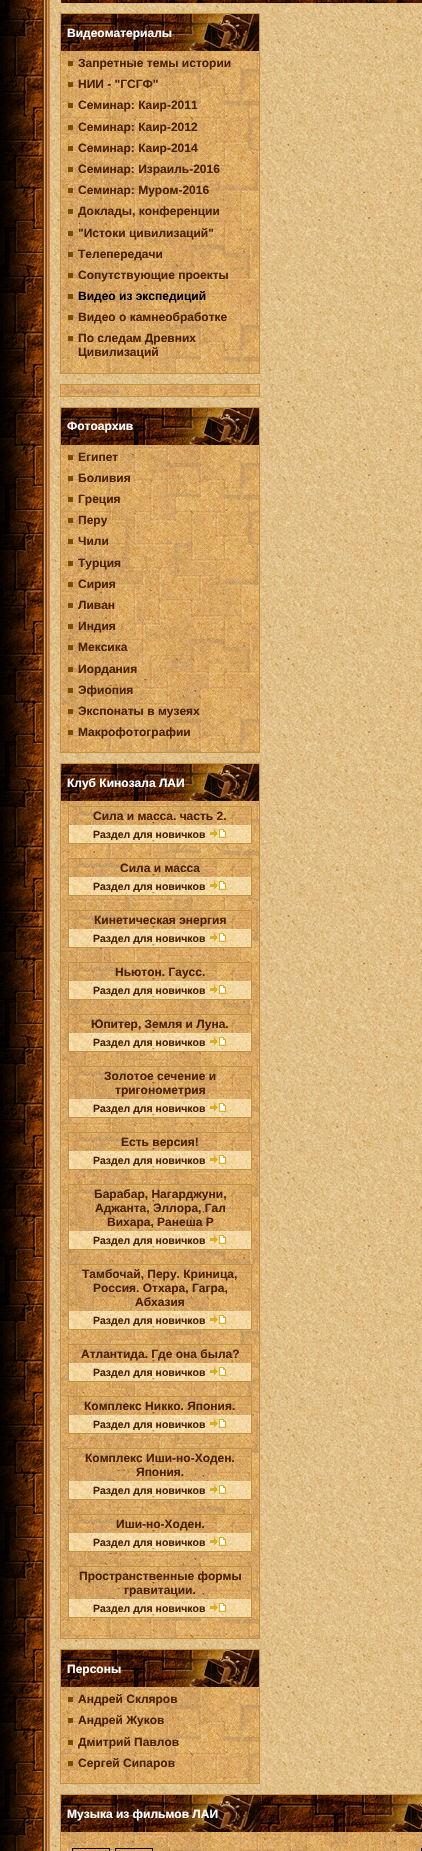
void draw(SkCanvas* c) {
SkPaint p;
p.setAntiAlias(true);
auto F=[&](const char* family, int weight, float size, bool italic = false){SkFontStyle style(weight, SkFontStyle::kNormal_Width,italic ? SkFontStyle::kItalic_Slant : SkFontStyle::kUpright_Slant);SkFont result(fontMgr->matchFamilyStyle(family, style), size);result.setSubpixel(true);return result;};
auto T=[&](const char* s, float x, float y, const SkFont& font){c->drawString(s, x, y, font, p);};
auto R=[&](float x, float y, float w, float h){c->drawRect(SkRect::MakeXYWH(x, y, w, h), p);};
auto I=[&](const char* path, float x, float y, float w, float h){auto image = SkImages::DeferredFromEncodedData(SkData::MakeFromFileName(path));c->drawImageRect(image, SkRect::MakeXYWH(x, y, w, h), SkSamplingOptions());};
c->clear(0xffffffff);
I("1.png",0,0,422,1851);
I("2.png",61,0,361,3);
I("3.png",150,0,3,1);
I("4.png",61,51,198,322);
p.setStroke(true);
p.setStrokeWidth(1);
p.setColor(0xffc09241);
c->drawRect(SkRect::MakeXYWH(60.5,13.5,199,360),p);
I("5.png",61,14,198,37);
auto f1 = F("Liberation Sans",700,12);
p.setStroke(false);
p.setColor(0xffffffff);
T("Видеоматериалы",67,37,f1);
p.setColor(0xff764b06);
R(68,61,5,5);
p.setColor(0xff492002);
T("Запретные темы истории",78,67,f1);
p.setColor(0xff764b06);
R(68,82,5,5);
p.setColor(0xff492002);
T("НИИ - \"ГСГФ\"",78,88,f1);
p.setColor(0xff764b06);
R(68,103,5,5);
p.setColor(0xff492002);
T("Семинар: Каир-2011",78,109,f1);
p.setColor(0xff764b06);
R(68,125,5,5);
p.setColor(0xff492002);
T("Семинар: Каир-2012",78,131,f1);
p.setColor(0xff764b06);
R(68,146,5,5);
p.setColor(0xff492002);
T("Семинар: Каир-2014",78,152,f1);
p.setColor(0xff764b06);
R(68,167,5,5);
p.setColor(0xff492002);
T("Семинар: Израиль-2016",78,173,f1);
p.setColor(0xff764b06);
R(68,188,5,5);
p.setColor(0xff492002);
T("Семинар: Муром-2016",78,194,f1);
p.setColor(0xff764b06);
R(68,209,5,5);
p.setColor(0xff492002);
T("Доклады, конференции",78,215,f1);
p.setColor(0xff764b06);
R(68,231,5,5);
p.setColor(0xff492002);
T("\"Истоки цивилизаций\"",78,237,f1);
p.setColor(0xff764b06);
R(68,252,5,5);
p.setColor(0xff492002);
T("Телепередачи",78,258,f1);
p.setColor(0xff764b06);
R(68,273,5,5);
p.setColor(0xff492002);
T("Сопутствующие проекты",78,279,f1);
p.setColor(0xff764b06);
R(68,294,5,5);
p.setColor(0xff000000);
T("Видео из экспедиций",78,300,f1);
p.setColor(0xff764b06);
R(68,315,5,5);
p.setColor(0xff492002);
T("Видео о камнеобработке",78,321,f1);
p.setColor(0xff764b06);
R(68,336,5,5);
p.setColor(0xff492002);
T("По следам Древних",78,342,f1);
T("Цивилизаций",78,356,f1);
I("6.png",61,385,198,11);
p.setStroke(true);
p.setColor(0xffc09241);
c->drawRect(SkRect::MakeXYWH(60.5,384.5,199,12),p);
I("7.png",61,445,198,307);
c->drawRect(SkRect::MakeXYWH(60.5,407.5,199,345),p);
I("5.png",61,408,198,37);
p.setStroke(false);
p.setColor(0xffffffff);
T("Фотоархив",67,430,f1);
p.setColor(0xff764b06);
R(68,455,5,5);
p.setColor(0xff492002);
T("Египет",78,461,f1);
p.setColor(0xff764b06);
R(68,476,5,5);
p.setColor(0xff492002);
T("Боливия",78,482,f1);
p.setColor(0xff764b06);
R(68,497,5,5);
p.setColor(0xff492002);
T("Греция",78,503,f1);
p.setColor(0xff764b06);
R(68,518,5,5);
p.setColor(0xff492002);
T("Перу",78,524,f1);
p.setColor(0xff764b06);
R(68,539,5,5);
p.setColor(0xff492002);
T("Чили",78,545,f1);
p.setColor(0xff764b06);
R(68,561,5,5);
p.setColor(0xff492002);
T("Турция",78,567,f1);
p.setColor(0xff764b06);
R(68,582,5,5);
p.setColor(0xff492002);
T("Сирия",78,588,f1);
p.setColor(0xff764b06);
R(68,603,5,5);
p.setColor(0xff492002);
T("Ливан",78,609,f1);
p.setColor(0xff764b06);
R(68,624,5,5);
p.setColor(0xff492002);
T("Индия",78,630,f1);
p.setColor(0xff764b06);
R(68,645,5,5);
p.setColor(0xff492002);
T("Мексика",78,651,f1);
p.setColor(0xff764b06);
R(68,667,5,5);
p.setColor(0xff492002);
T("Иордания",78,673,f1);
p.setColor(0xff764b06);
R(68,688,5,5);
p.setColor(0xff492002);
T("Эфиопия",78,694,f1);
p.setColor(0xff764b06);
R(68,709,5,5);
p.setColor(0xff492002);
T("Экспонаты в музеях",78,715,f1);
p.setColor(0xff764b06);
R(68,730,5,5);
p.setColor(0xff492002);
T("Макрофотографии",78,736,f1);
I("8.png",61,801,198,837);
p.setStroke(true);
p.setColor(0xffc09241);
c->drawRect(SkRect::MakeXYWH(60.5,763.5,199,875),p);
I("5.png",61,764,198,37);
p.setStroke(false);
p.setColor(0xffffffff);
T("Клуб Кинозала ЛАИ",67,787,f1);
p.setStroke(true);
p.setColor(0xffc09241);
c->drawRect(SkRect::MakeXYWH(68.5,806.5,183,37),p);
I("9.png",69,807,182,18);
p.setStroke(false);
p.setColor(0xff492002);
T("Сила и масса. часть 2.",93,820,f1);
I("10.png",69,825,182,18);
auto f2 = F("Liberation Sans",700,10.5);
T("Раздел для новичков",93,838,f2);
I("11.png",210,829,16,9);
p.setStroke(true);
p.setColor(0xffc09241);
c->drawRect(SkRect::MakeXYWH(68.5,858.5,183,37),p);
I("9.png",69,859,182,18);
p.setStroke(false);
p.setColor(0xff492002);
T("Сила и масса",120,872,f1);
I("10.png",69,877,182,18);
T("Раздел для новичков",93,890,f2);
I("11.png",210,881,16,9);
p.setStroke(true);
p.setColor(0xffc09241);
c->drawRect(SkRect::MakeXYWH(68.5,910.5,183,37),p);
I("9.png",69,911,182,18);
p.setStroke(false);
p.setColor(0xff492002);
T("Кинетическая энергия",94,924,f1);
I("10.png",69,929,182,18);
T("Раздел для новичков",93,942,f2);
I("11.png",210,933,16,9);
p.setStroke(true);
p.setColor(0xffc09241);
c->drawRect(SkRect::MakeXYWH(68.5,962.5,183,37),p);
I("9.png",69,963,182,18);
p.setStroke(false);
p.setColor(0xff492002);
T("Ньютон. Гаусс.",115,976,f1);
I("10.png",69,981,182,18);
T("Раздел для новичков",93,994,f2);
I("11.png",210,985,16,9);
p.setStroke(true);
p.setColor(0xffc09241);
c->drawRect(SkRect::MakeXYWH(68.5,1014.5,183,37),p);
I("9.png",69,1015,182,18);
p.setStroke(false);
p.setColor(0xff492002);
T("Юпитер, Земля и Луна.",91,1028,f1);
I("10.png",69,1033,182,18);
T("Раздел для новичков",93,1046,f2);
I("11.png",210,1037,16,9);
p.setStroke(true);
p.setColor(0xffc09241);
c->drawRect(SkRect::MakeXYWH(68.5,1066.5,183,51),p);
I("12.png",69,1067,182,32);
p.setStroke(false);
p.setColor(0xff492002);
T("Золотое сечение и",104,1080,f1);
T("тригонометрия",115,1094,f1);
I("10.png",69,1099,182,18);
T("Раздел для новичков",93,1112,f2);
I("11.png",210,1103,16,9);
p.setStroke(true);
p.setColor(0xffc09241);
c->drawRect(SkRect::MakeXYWH(68.5,1132.5,183,37),p);
I("9.png",69,1133,182,18);
p.setStroke(false);
p.setColor(0xff492002);
T("Есть версия!",121,1146,f1);
I("10.png",69,1151,182,18);
T("Раздел для новичков",93,1164,f2);
I("11.png",210,1155,16,9);
p.setStroke(true);
p.setColor(0xffc09241);
c->drawRect(SkRect::MakeXYWH(68.5,1184.5,183,65),p);
I("13.png",69,1185,182,46);
p.setStroke(false);
p.setColor(0xff492002);
T("Барабар, Нагарджуни,",94,1198,f1);
T("Аджанта, Эллора, Гал",95,1212,f1);
T("Вихара, Ранеша Р",107,1226,f1);
I("10.png",69,1231,182,18);
T("Раздел для новичков",93,1244,f2);
I("11.png",210,1235,16,9);
p.setStroke(true);
p.setColor(0xffc09241);
c->drawRect(SkRect::MakeXYWH(68.5,1264.5,183,65),p);
I("13.png",69,1265,182,46);
p.setStroke(false);
p.setColor(0xff492002);
T("Тамбочай, Перу. Криница,",82,1278,f1);
T("Россия. Отхара, Гагра,",93,1292,f1);
T("Абхазия",135,1306,f1);
I("10.png",69,1311,182,18);
T("Раздел для новичков",93,1324,f2);
I("11.png",210,1315,16,9);
p.setStroke(true);
p.setColor(0xffc09241);
c->drawRect(SkRect::MakeXYWH(68.5,1344.5,183,37),p);
I("9.png",69,1345,182,18);
p.setStroke(false);
p.setColor(0xff492002);
T("Атлантида. Где она была?",81,1358,f1);
I("10.png",69,1363,182,18);
T("Раздел для новичков",93,1376,f2);
I("11.png",210,1367,16,9);
p.setStroke(true);
p.setColor(0xffc09241);
c->drawRect(SkRect::MakeXYWH(68.5,1396.5,183,37),p);
I("9.png",69,1397,182,18);
p.setStroke(false);
p.setColor(0xff492002);
T("Комплекс Никко. Япония.",84,1410,f1);
I("10.png",69,1415,182,18);
T("Раздел для новичков",93,1428,f2);
I("11.png",210,1419,16,9);
p.setStroke(true);
p.setColor(0xffc09241);
c->drawRect(SkRect::MakeXYWH(68.5,1448.5,183,51),p);
I("12.png",69,1449,182,32);
p.setStroke(false);
p.setColor(0xff492002);
T("Комплекс Иши-но-Ходен.",85,1462,f1);
T("Япония.",136,1476,f1);
I("10.png",69,1481,182,18);
T("Раздел для новичков",93,1494,f2);
I("11.png",210,1485,16,9);
p.setStroke(true);
p.setColor(0xffc09241);
c->drawRect(SkRect::MakeXYWH(68.5,1514.5,183,37),p);
I("9.png",69,1515,182,18);
p.setStroke(false);
p.setColor(0xff492002);
T("Иши-но-Ходен.",116,1528,f1);
I("10.png",69,1533,182,18);
T("Раздел для новичков",93,1546,f2);
I("11.png",210,1537,16,9);
p.setStroke(true);
p.setColor(0xffc09241);
c->drawRect(SkRect::MakeXYWH(68.5,1566.5,183,51),p);
I("12.png",69,1567,182,32);
p.setStroke(false);
p.setColor(0xff492002);
T("Пространственные формы",79,1580,f1);
T("гравитации.",124,1594,f1);
I("10.png",69,1599,182,18);
T("Раздел для новичков",93,1612,f2);
I("11.png",210,1603,16,9);
I("14.png",61,1687,198,96);
p.setStroke(true);
p.setColor(0xffc09241);
c->drawRect(SkRect::MakeXYWH(60.5,1649.5,199,134),p);
I("5.png",61,1650,198,37);
p.setStroke(false);
p.setColor(0xffffffff);
T("Персоны",67,1673,f1);
p.setColor(0xff764b06);
R(68,1697,5,5);
p.setColor(0xff492002);
T("Андрей Скляров",78,1703,f1);
p.setColor(0xff764b06);
R(68,1718,5,5);
p.setColor(0xff492002);
T("Андрей Жуков",78,1724,f1);
p.setColor(0xff764b06);
R(68,1740,5,5);
p.setColor(0xff492002);
T("Дмитрий Павлов",78,1746,f1);
p.setColor(0xff764b06);
R(68,1761,5,5);
p.setColor(0xff492002);
T("Сергей Сипаров",78,1767,f1);
I("15.png",61,1832,361,19);
p.setStroke(true);
p.setColor(0xffc09241);
c->drawRect(SkRect::MakeXYWH(60.5,1794.5,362,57),p);
I("16.png",61,1795,361,37);
p.setStroke(false);
p.setColor(0xffffffff);
T("Музыка из фильмов ЛАИ",67,1818,f1);
p.setStroke(true);
p.setColor(0xff000000);
c->drawRect(SkRect::MakeXYWH(72.5,1848.5,37,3),p);
c->drawRect(SkRect::MakeXYWH(115.5,1848.5,37,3),p);
c->drawRect(SkRect::MakeXYWH(421.5,1848.5,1,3),p);
}
